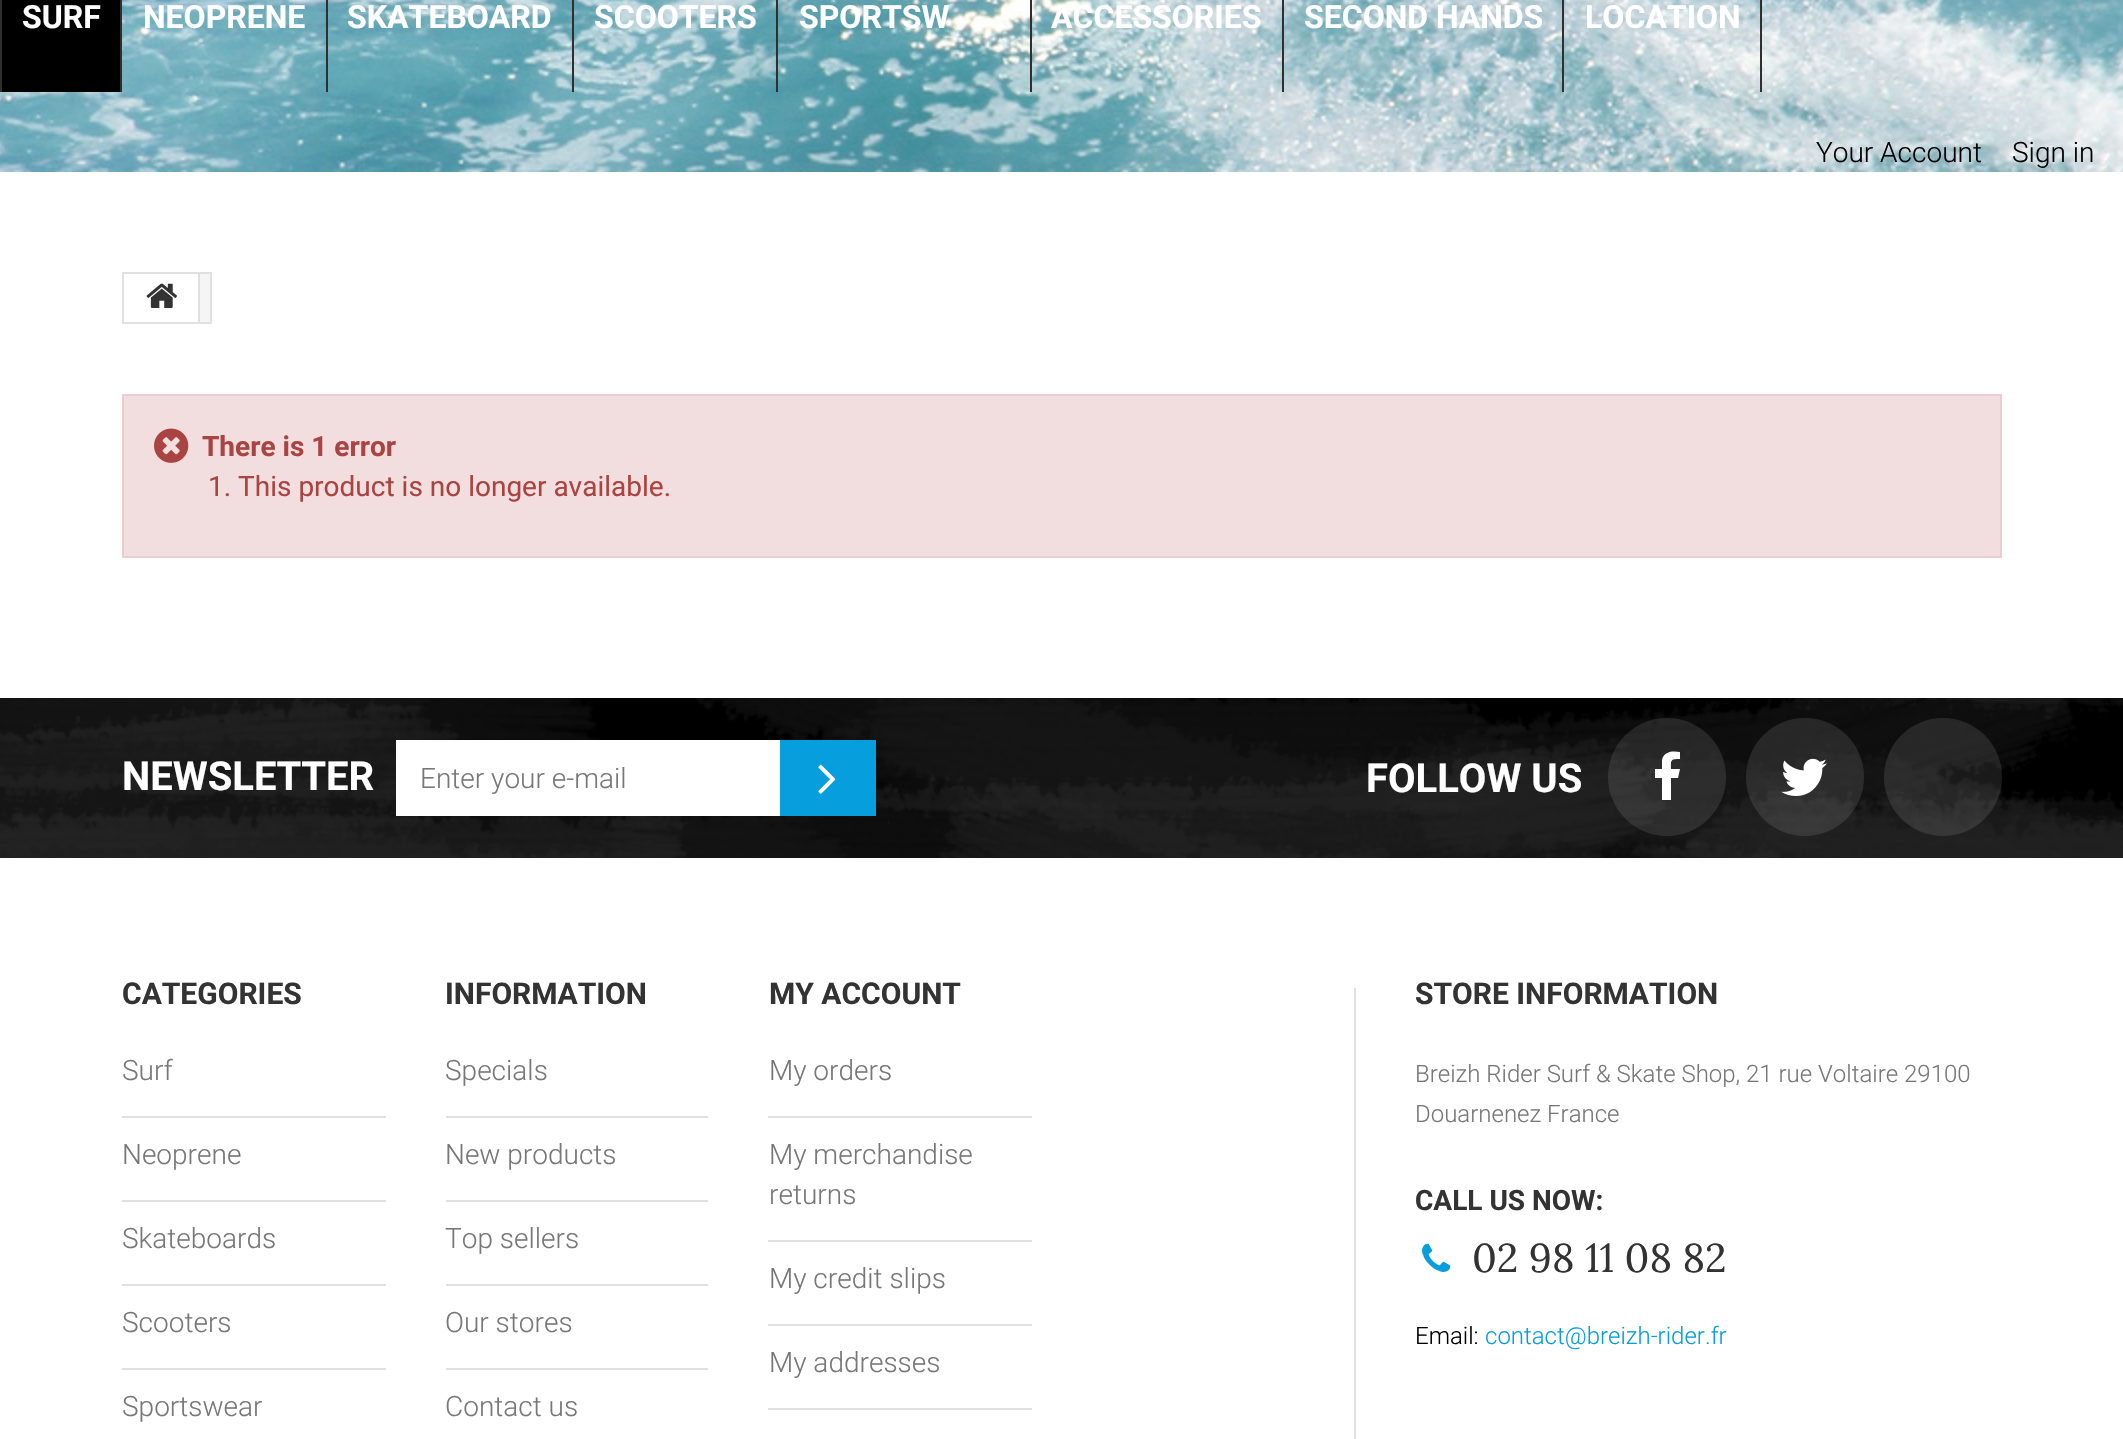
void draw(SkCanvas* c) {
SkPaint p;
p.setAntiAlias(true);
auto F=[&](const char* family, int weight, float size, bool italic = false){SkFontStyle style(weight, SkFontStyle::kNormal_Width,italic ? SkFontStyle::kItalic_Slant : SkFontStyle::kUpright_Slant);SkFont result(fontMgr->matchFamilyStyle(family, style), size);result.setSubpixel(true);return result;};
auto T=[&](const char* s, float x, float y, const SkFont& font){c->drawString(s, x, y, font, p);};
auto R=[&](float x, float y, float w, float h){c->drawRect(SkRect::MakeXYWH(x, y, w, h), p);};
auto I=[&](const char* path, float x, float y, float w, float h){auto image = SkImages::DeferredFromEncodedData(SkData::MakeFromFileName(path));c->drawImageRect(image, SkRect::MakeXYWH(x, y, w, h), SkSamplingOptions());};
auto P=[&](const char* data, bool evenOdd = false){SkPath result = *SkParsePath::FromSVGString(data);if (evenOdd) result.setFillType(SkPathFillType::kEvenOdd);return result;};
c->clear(0xffffffff);
I("1.png",0,0,2123,172);
p.setColor(0xff000000);
R(2,0,118,92);
p.setColor(0xff2f2f2f);
R(120,0,2,92);
R(0,0,2,92);
auto f1 = F("Roboto",700,32);
p.setColor(0xffffffff);
T("SURF",22,28,f1);
p.setColor(0xff2f2f2f);
R(326,0,2,92);
p.setColor(0xffffffff);
T("NEOPRENE",143,28,f1);
p.setColor(0xff2f2f2f);
R(572,0,2,92);
p.setColor(0xffffffff);
T("SKATEBOARD",347,28,f1);
p.setColor(0xff2f2f2f);
R(776,0,2,92);
p.setColor(0xffffffff);
T("SCOOTERS",594,28,f1);
p.setColor(0xff2f2f2f);
R(1030,0,2,92);
p.setColor(0xffffffff);
T("SPORTSW",799,28,f1);
p.setColor(0xff2f2f2f);
R(1282,0,2,92);
p.setColor(0xffffffff);
T("ACCESSORIES",1051,28,f1);
p.setColor(0xff2f2f2f);
R(1562,0,2,92);
p.setColor(0xffffffff);
T("SECOND HANDS",1304,28,f1);
p.setColor(0xff2f2f2f);
R(1760,0,2,92);
p.setColor(0xffffffff);
T("LOCATION",1585,28,f1);
auto f2 = F("Roboto",300,28);
p.setColor(0xff000000);
T("Your Account",1816,162,f2);
T("Sign in",2012,162,f2);
p.setColor(0xfff5f5f5);
R(200,274,10,48);
p.setStroke(true);
p.setStrokeWidth(2);
p.setColor(0xffe0e0e0);
c->drawRect(SkRect::MakeXYWH(123,273,88,50),p);
p.setStroke(false);
R(198,274,2,48);
I("2.png",146,283,31,25);
p.setColor(0xfff2dede);
c->drawRect(SkRect::MakeXYWH(123,395,1878,162),p);
p.setStroke(true);
p.setColor(0xffebccd1);
c->drawRect(SkRect::MakeXYWH(123,395,1878,162),p);
I("3.png",154,428,35,35);
auto f3 = F("Roboto",700,28);
p.setStroke(false);
p.setColor(0xffa94442);
T("There is 1 error",202,456,f3);
auto f4 = F("Roboto",400,28);
T("1. This product is no longer available.",208,496,f4);
I("4.png",0,698,2123,160);
auto f5 = F("Roboto",700,40);
p.setColor(0xffffffff);
T("NEWSLETTER",122,790,f5);
R(396,740,384,76);
p.setColor(0xff777777);
T("Enter your e-mail",420,788,f2);
p.setColor(0xff079edd);
R(780,740,96,76);
I("5.png",818,764,18,30);
p.setColor(0xffffffff);
T("FOLLOW US",1366,792,f5);
p.setColor(0x1affffff);
c->drawCircle(1667,777,59,p);
p.setColor(0xffffffff);
c->drawPath(P("M1655 778v-9h7v-9c2-9 11-9 18-8v7c-10 0-9 1-9 10h9l-2 9h-7v22h-9v-22z"),p);
p.setColor(0x1affffff);
c->drawCircle(1805,777,59,p);
I("6.png",1781,758,46,38);
c->drawCircle(1943,777,59,p);
auto f6 = F("Roboto",700,30);
p.setColor(0xff333333);
T("CATEGORIES",122,1004,f6);
p.setColor(0xff777777);
T("Surf",122,1080,f2);
p.setColor(0xffe0e0e0);
R(122,1116,264,2);
p.setColor(0xff777777);
T("Neoprene",122,1164,f2);
p.setColor(0xffe0e0e0);
R(122,1200,264,2);
p.setColor(0xff777777);
T("Skateboards",122,1248,f2);
p.setColor(0xffe0e0e0);
R(122,1284,264,2);
p.setColor(0xff777777);
T("Scooters",122,1332,f2);
p.setColor(0xffe0e0e0);
R(122,1368,264,2);
p.setColor(0xff777777);
T("Sportswear",122,1416,f2);
p.setColor(0xff333333);
T("INFORMATION",445,1004,f6);
p.setColor(0xff777777);
T("Specials",445,1080,f2);
p.setColor(0xffe0e0e0);
R(446,1116,262,2);
p.setColor(0xff777777);
T("New products",445,1164,f2);
p.setColor(0xffe0e0e0);
R(446,1200,262,2);
p.setColor(0xff777777);
T("Top sellers",445,1248,f2);
p.setColor(0xffe0e0e0);
R(446,1284,262,2);
p.setColor(0xff777777);
T("Our stores",445,1332,f2);
p.setColor(0xffe0e0e0);
R(446,1368,262,2);
p.setColor(0xff777777);
T("Contact us",445,1416,f2);
p.setColor(0xff333333);
T("MY ACCOUNT",769,1004,f6);
p.setColor(0xff777777);
T("My orders",769,1080,f2);
p.setColor(0xffe0e0e0);
R(768,1116,264,2);
p.setColor(0xff777777);
T("My merchandise",769,1164,f2);
T("returns",769,1204,f2);
p.setColor(0xffe0e0e0);
R(768,1240,264,2);
p.setColor(0xff777777);
T("My credit slips",769,1288,f2);
p.setColor(0xffe0e0e0);
R(768,1324,264,2);
p.setColor(0xff777777);
T("My addresses",769,1372,f2);
p.setColor(0xffe0e0e0);
R(768,1408,264,2);
R(1354,988,2,451);
p.setColor(0xff333333);
T("STORE INFORMATION",1415,1004,f6);
auto f7 = F("Roboto",300,24);
p.setColor(0xff777777);
T("Breizh Rider Surf & Skate Shop, 21 rue Voltaire 29100",1415,1082,f7);
T("Douarnenez France",1415,1122,f7);
p.setColor(0xff333333);
T("CALL US NOW:",1415,1210,f3);
I("7.png",1422,1243,29,29);
auto f8 = F("Lora",400,40);
T("02 98 11 08 82",1472,1272,f8);
p.setColor(0xff000000);
T("Email:",1415,1344,f7);
p.setColor(0xff079edd);
T("contact@breizh-rider.fr",1485,1344,f7);
}
